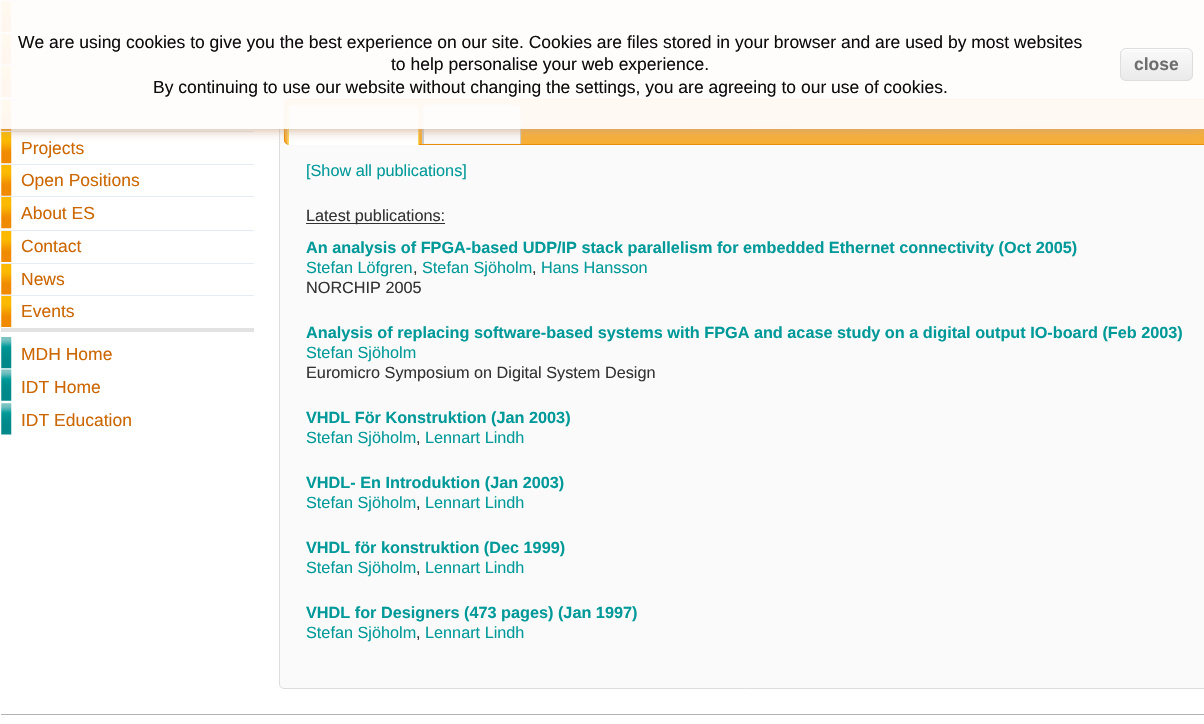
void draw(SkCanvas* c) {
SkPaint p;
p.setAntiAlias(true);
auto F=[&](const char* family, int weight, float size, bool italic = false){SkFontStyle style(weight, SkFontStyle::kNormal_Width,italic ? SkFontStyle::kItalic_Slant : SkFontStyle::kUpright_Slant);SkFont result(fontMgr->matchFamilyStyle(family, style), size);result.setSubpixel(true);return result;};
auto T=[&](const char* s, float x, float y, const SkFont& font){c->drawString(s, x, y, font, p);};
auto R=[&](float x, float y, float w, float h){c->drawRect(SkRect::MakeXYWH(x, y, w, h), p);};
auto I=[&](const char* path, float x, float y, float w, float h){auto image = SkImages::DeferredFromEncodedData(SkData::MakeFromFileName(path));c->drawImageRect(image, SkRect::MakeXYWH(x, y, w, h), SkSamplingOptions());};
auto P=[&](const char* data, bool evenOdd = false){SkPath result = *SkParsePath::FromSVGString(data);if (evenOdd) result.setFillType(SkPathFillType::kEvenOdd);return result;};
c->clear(0xffffffff);
p.setColor(0xffb2b2b2);
R(1,714,1203,1);
I("1.png",1,1,11,31);
p.setColor(0xffe6ecf5);
R(1,0,253,1);
I("2.png",1,34,11,31);
R(1,33,253,1);
I("1.png",1,66,11,31);
R(1,65,253,1);
I("3.png",1,100,11,31);
R(1,99,253,1);
I("4.png",1,132,11,32);
R(1,131,253,1);
p.setColor(0xfffafafa);
c->drawRoundRect(SkRect::MakeXYWH(279.5,95.5,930,593),4.5,4.5,p);
p.setStroke(true);
p.setStrokeWidth(1);
p.setColor(0xffdddddd);
c->drawRoundRect(SkRect::MakeXYWH(279.5,95.5,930,593),4.5,4.5,p);
I("8.png",283,98,921,46);
p.setColor(0xffe78f08);
c->drawRoundRect(SkRect::MakeXYWH(284.5,99.5,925,45),4.5,4.5,p);
p.setStroke(false);
p.setColor(0xffffffff);
c->drawPath(P("M293 106h121c2 0 4 2 4 4v35h-129v-35c0-2 2-4 4-4z"),p);
I("9.png",287,104,132,41);
p.setColor(0xfffbd850);
c->drawPath(P("M292 105h122c3 0 5 2 5 5v35h-131v-35c0-3 2-5 4-5zm0 1h122c2 0 4 2 4 4v35h-129v-35c0-2 1-4 3-4z",true),p);
p.setColor(0xfff6f6f6);
c->drawPath(P("M428 106h88c2 0 4 2 4 4v34h-96v-34c0-2 2-4 4-4z"),p);
I("10.png",422,104,100,40);
p.setColor(0xffcccccc);
c->drawPath(P("M428 105h88c3 0 5 2 5 5v34h-99v-34c0-3 3-5 6-5zm0 1h88c2 0 4 2 4 4v34h-96v-34c0-2 1-4 4-4z",true),p);
c->save();
c->clipPath(P("M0 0h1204v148h-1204zm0 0h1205v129h-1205z",true),true);
p.setColor(0xf2c9a383);
p.setMaskFilter(SkMaskFilter::MakeBlur(kNormal_SkBlurStyle, 6));
c->drawRect(SkRect::MakeXYWH(0,0,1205,129),p);
p.setMaskFilter(nullptr);
c->restore();
p.setColor(0xf2fffcfc);
R(0,0,1204,129);
auto f1 = F("Liberation Sans",400,17.5);
p.setColor(0xff0d0d0d);
T("We are using cookies to give you the best experience on our site. Cookies are files stored in your browser and are used by most websites",18,48,f1);
T("to help personalise your web experience.",391,70,f1);
T("By continuing to use our website without changing the settings, you are agreeing to our use of cookies.",153,93,f1);
c->save();
c->clipPath(P("M1126 48h61c3.5 0 6 2.5 6 6v21c0 3.5-2.5 6-6 6h-61c-3.5 0-6-2.5-6-6v-21c0-3.5 2.5-6 6-6z"),true);
{
const SkColor colors[] = {0xfff9f9f9,0xffeaeaea};
const float stops[] = {.05,1};
const SkPoint ends[] = {{1121,49}, {1121,80}};
p.setShader(SkGradientShader::MakeLinear(ends, colors, stops, 2, SkTileMode::kClamp));
p.setAlpha(255);
}
R(1120,49,73,31);
c->restore();
p.setShader(nullptr);
p.setColor(0xffffffff);
c->drawPath(P("M1126 50h60c3 0 5 2 5 5c0-8-9-6-15-6h-40c-6 0-15-2-15 6c0-3 2-5 5-5z"),p);
p.setStroke(true);
p.setColor(0xffdedede);
c->drawRoundRect(SkRect::MakeXYWH(1120.5,48.5,72,32),5.5,5.5,p);
auto f2 = F("Liberation Sans",700,17.5);
p.setStroke(false);
p.setColor(0xff6e6e6e);
T("close",1134,70,f2);
p.setColor(0xffe2e2e2);
R(1,328,253,4);
p.setColor(0xffcc6600);
T("Projects",21,154,f1);
I("3.png",1,165,11,31);
p.setColor(0xffe6ecf5);
R(1,164,253,1);
p.setColor(0xffcc6600);
T("Open Positions",21,186,f1);
I("4.png",1,197,11,32);
p.setColor(0xffe6ecf5);
R(1,196,253,1);
p.setColor(0xffcc6600);
T("About ES",21,219,f1);
I("1.png",1,231,11,31);
p.setColor(0xffe6ecf5);
R(1,230,253,1);
p.setColor(0xffcc6600);
T("Contact",21,252,f1);
I("2.png",1,264,11,31);
p.setColor(0xffe6ecf5);
R(1,263,253,1);
p.setColor(0xffcc6600);
T("News",21,285,f1);
I("1.png",1,296,11,31);
p.setColor(0xffe6ecf5);
R(1,295,253,1);
p.setColor(0xffcc6600);
T("Events",21,317,f1);
I("5.png",1,337,11,32);
T("MDH Home",21,360,f1);
I("6.png",1,369,11,32);
T("IDT Home",21,393,f1);
I("7.png",1,403,11,32);
T("IDT Education",21,426,f1);
auto f3 = F("Liberation Sans",400,16.25);
p.setColor(0xff009999);
T("[Show all publications]",306,176,f3);
p.setColor(0xff333333);
R(306,223,139,1);
T("Latest publications:",306,221,f3);
auto f4 = F("Liberation Sans",700,16.25);
p.setColor(0xff009999);
T("An analysis of FPGA-based UDP/IP stack parallelism for embedded Ethernet connectivity (Oct 2005)",306,253,f4);
T("Stefan Löfgren",306,273,f3);
p.setColor(0xff333333);
T(",",413,273,f3);
p.setColor(0xff009999);
T("Stefan Sjöholm",422,273,f3);
p.setColor(0xff333333);
T(",",532,273,f3);
p.setColor(0xff009999);
T("Hans Hansson",541,273,f3);
p.setColor(0xff333333);
T("NORCHIP 2005",306,293,f3);
p.setColor(0xff009999);
T("Analysis of replacing software-based systems with FPGA and acase study on a digital output IO-board (Feb 2003)",306,338,f4);
T("Stefan Sjöholm",306,358,f3);
p.setColor(0xff333333);
T("Euromicro Symposium on Digital System Design",306,378,f3);
p.setColor(0xff009999);
T("VHDL För Konstruktion (Jan 2003)",306,423,f4);
T("Stefan Sjöholm",306,443,f3);
p.setColor(0xff333333);
T(",",416,443,f3);
p.setColor(0xff009999);
T("Lennart Lindh",425,443,f3);
T("VHDL- En Introduktion (Jan 2003)",306,488,f4);
T("Stefan Sjöholm",306,508,f3);
p.setColor(0xff333333);
T(",",416,508,f3);
p.setColor(0xff009999);
T("Lennart Lindh",425,508,f3);
T("VHDL för konstruktion (Dec 1999)",306,553,f4);
T("Stefan Sjöholm",306,573,f3);
p.setColor(0xff333333);
T(",",416,573,f3);
p.setColor(0xff009999);
T("Lennart Lindh",425,573,f3);
T("VHDL for Designers (473 pages) (Jan 1997)",306,618,f4);
T("Stefan Sjöholm",306,638,f3);
p.setColor(0xff333333);
T(",",416,638,f3);
p.setColor(0xff009999);
T("Lennart Lindh",425,638,f3);
}
